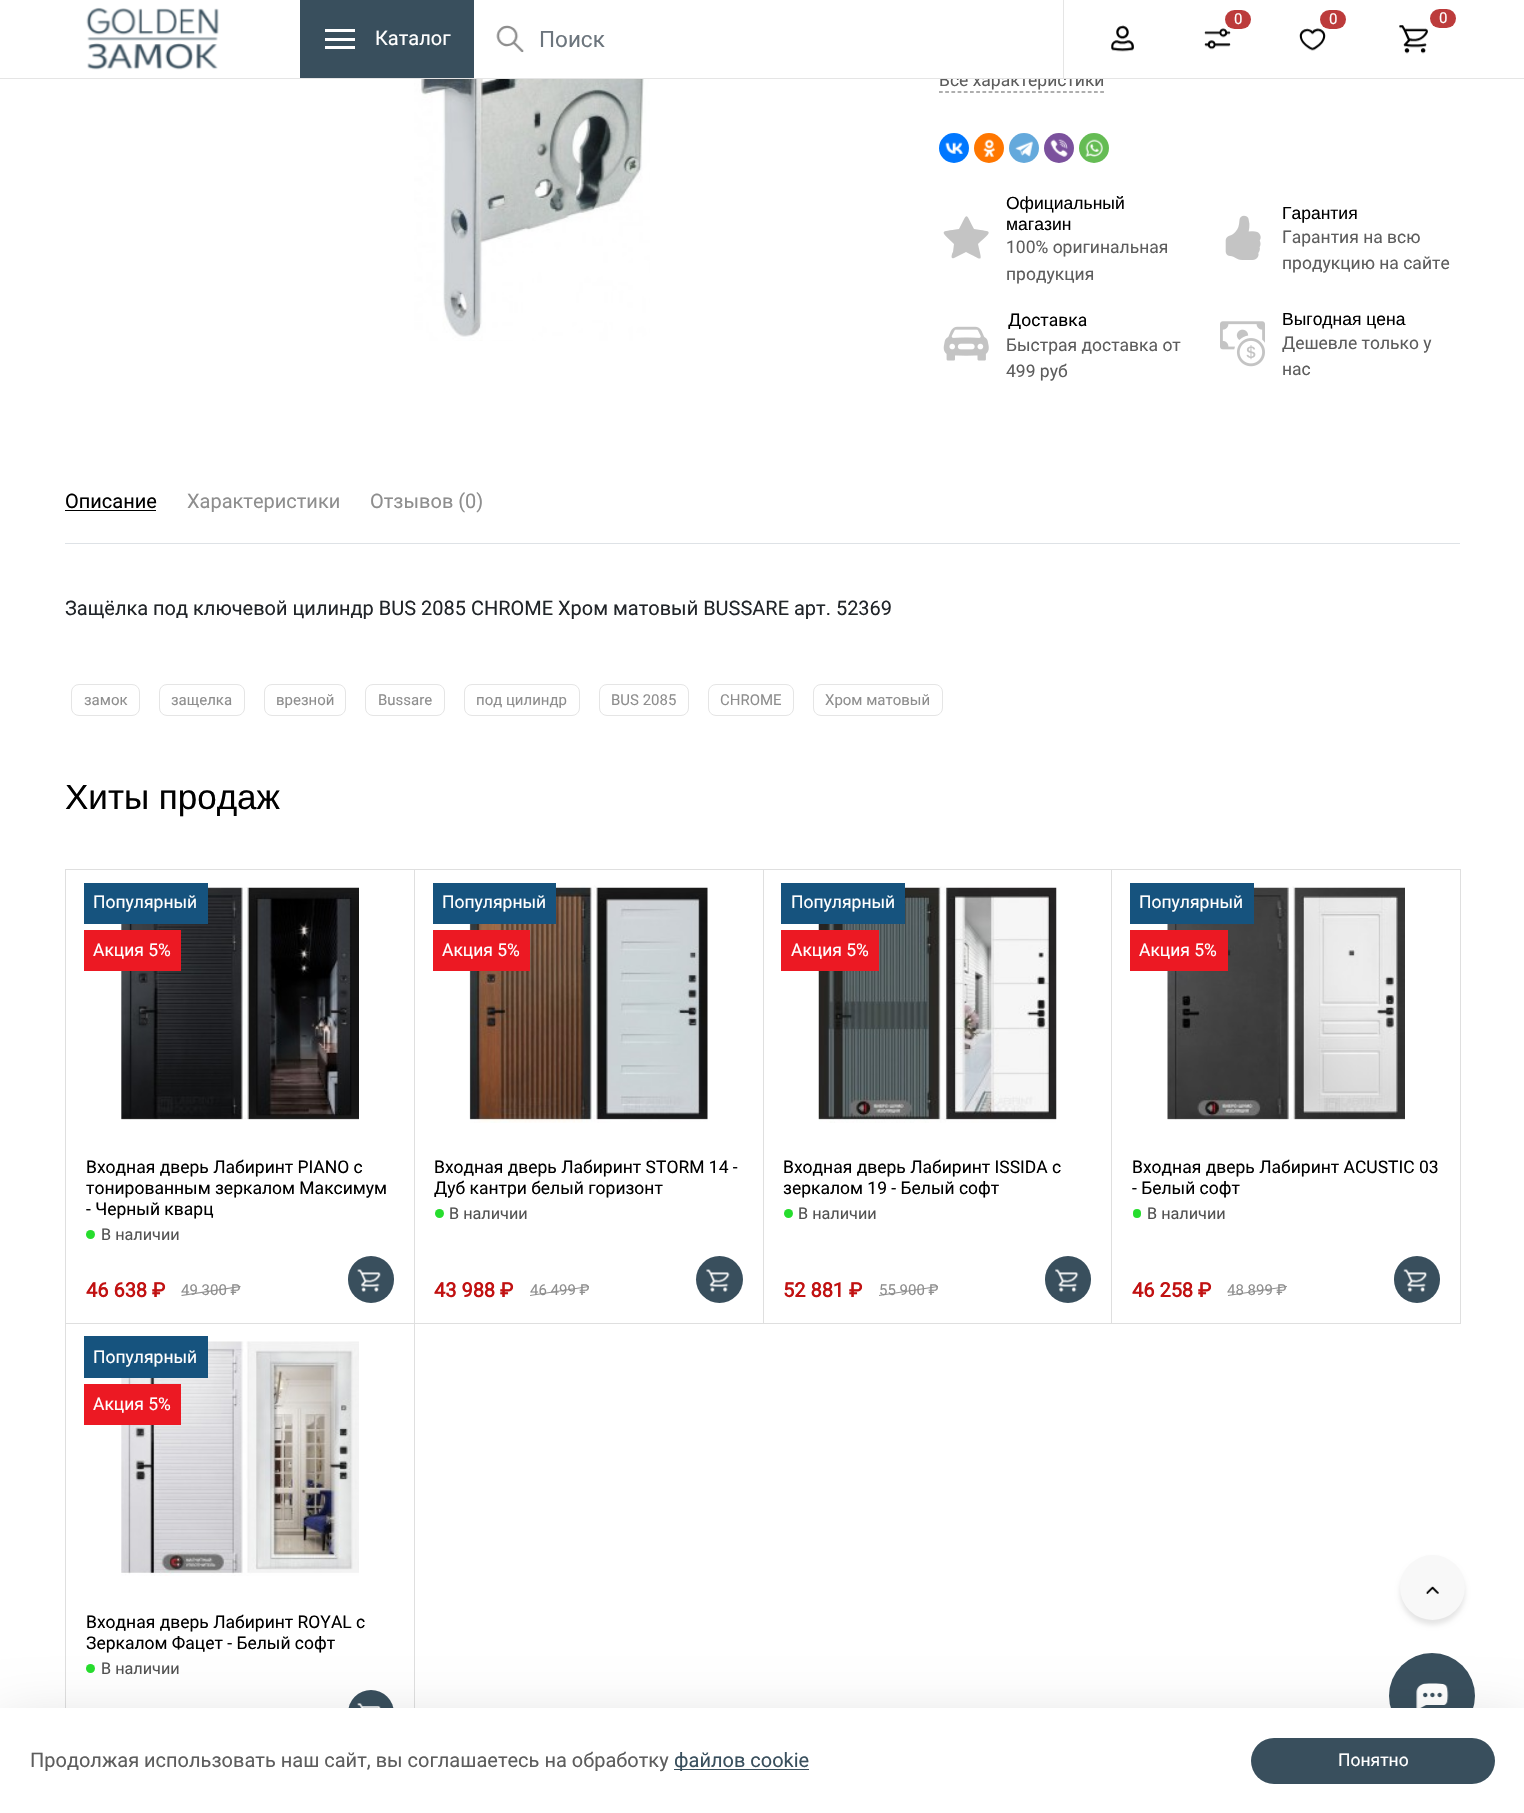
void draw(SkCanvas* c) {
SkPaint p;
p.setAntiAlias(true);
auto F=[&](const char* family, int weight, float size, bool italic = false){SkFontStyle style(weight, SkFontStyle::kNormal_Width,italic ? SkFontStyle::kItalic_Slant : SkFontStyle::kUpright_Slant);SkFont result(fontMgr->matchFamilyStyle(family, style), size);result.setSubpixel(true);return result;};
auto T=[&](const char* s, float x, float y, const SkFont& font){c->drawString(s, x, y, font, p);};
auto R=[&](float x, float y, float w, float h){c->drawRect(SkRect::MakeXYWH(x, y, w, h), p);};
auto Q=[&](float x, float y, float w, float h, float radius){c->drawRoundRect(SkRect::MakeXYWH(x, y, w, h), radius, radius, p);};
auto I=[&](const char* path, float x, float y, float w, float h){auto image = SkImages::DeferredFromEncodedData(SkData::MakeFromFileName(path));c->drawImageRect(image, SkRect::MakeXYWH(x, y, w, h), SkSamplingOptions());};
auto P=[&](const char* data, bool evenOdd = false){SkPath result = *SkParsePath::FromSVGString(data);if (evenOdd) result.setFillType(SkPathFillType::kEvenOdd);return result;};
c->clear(0xffffffff);
auto f1 = F("Roboto",400,17.5);
p.setColor(0xff5d5d5d);
T("Все характеристики",939,86,f1);
p.setColor(0xffffffff);
R(940,73,163,5);
p.setColor(0xffe5e5e5);
R(0,78,1524,1);
I("1.png",86,7,133,63);
I("2.png",1204,28,27,22);
p.setColor(0xffbc3b3b);
Q(1225,10,26,19,9.5);
auto f2 = F("Roboto",400,15);
p.setColor(0xffffffff);
T("0",1234,24,f2);
I("3.png",1299,28,27,23);
p.setColor(0xffbc3b3b);
Q(1320,10,26,19,9.5);
p.setColor(0xffffffff);
T("0",1329,24,f2);
p.setColor(0xffbc3b3b);
Q(1430,9,26,19,9.5);
p.setColor(0xffffffff);
T("0",1439,23,f2);
I("4.png",1399,25,29,29);
I("5.png",1111,25,23,27);
p.setColor(0xff394f5d);
R(300,0,174,78);
p.setColor(0xffffffff);
R(325,38,30,3);
R(325,29,30,3);
R(325,46,30,3);
auto f3 = F("Roboto",400,20);
T("Каталог",375,45,f3);
I("6.png",496,25,28,28);
p.setColor(0xffe5e5e5);
R(1063,0,1,78);
auto f4 = F("Roboto",400,22.5);
p.setColor(0xff6c757d);
T("Поиск",539,47,f4);
I("7.png",414,79,236,262);
p.setStroke(true);
p.setStrokeWidth(1.2);
p.setColor(0xff5d5d5d);
p.setPathEffect(SkDashPathEffect::Make({{3.75f,2.45f}}, 0));
c->drawPath(P("M939 92h165"),p);
p.setPathEffect(nullptr);
p.setStroke(false);
p.setColor(0xff0077ff);
c->drawCircle(954,148,15,p);
I("8.png",945,142,18,12);
p.setColor(0xffff7700);
c->drawCircle(989,148,15,p);
I("9.png",983,139,12,18);
p.setColor(0xff64a9dc);
c->drawCircle(1024,148,15,p);
I("10.png",1015,141,18,16);
p.setColor(0xff7b519d);
c->drawCircle(1059,148,15,p);
I("11.png",1050,139,18,18);
p.setColor(0xff65bc54);
c->drawCircle(1094,148,15,p);
I("12.png",1085,139,18,18);
p.setColor(0xffc4c4c4);
c->drawPath(P("M954 258c-4 2-2-5-1-6l1-8c-14-14-15-12 5-15c9-17 6-17 15 0c19 3 19 1 4 15c4 19 6 17-12 8z"),p);
auto f5 = F("Liberation Sans",400,17.5);
p.setColor(0xff000000);
T("Официальный",1006,209,f5);
T("магазин",1006,230,f5);
p.setColor(0xff5d5d5d);
T("100% оригинальная",1006,253,f1);
T("продукция",1006,280,f1);
I("13.png",1225,215,36,45);
p.setColor(0xff000000);
T("Гарантия",1282,219,f5);
p.setColor(0xff5d5d5d);
T("Гарантия на всю",1282,243,f1);
T("продукцию на сайте",1282,269,f1);
I("14.png",943,326,46,35);
p.setColor(0xff000000);
T("Доставка",1008,326,f1);
p.setColor(0xff5d5d5d);
T("Быстрая доставка от",1006,351,f1);
T("499 руб",1006,377,f1);
I("15.png",1220,321,45,46);
p.setColor(0xff000000);
T("Выгодная цена",1282,325,f5);
p.setColor(0xff5d5d5d);
T("Дешевле только у",1282,349,f1);
T("нас",1282,375,f1);
p.setColor(0xffdee2e6);
R(65,543,1395,1);
p.setColor(0xff000000);
T("Описание",65,508,f3);
R(65,510,91,1);
p.setColor(0xff8e8e8e);
T("Характеристики",187,508,f3);
T("Отзывов (0)",370,508,f3);
p.setColor(0xff212529);
T("Защёлка под ключевой цилиндр BUS 2085 CHROME Хром матовый BUSSARE арт. 52369",65,615,f3);
p.setStroke(true);
p.setStrokeWidth(1);
p.setColor(0xffe5e5e5);
c->drawRoundRect(SkRect::MakeXYWH(71.5,684.5,68,31),7.5,7.5,p);
p.setStroke(false);
p.setColor(0xff8e8e8e);
T("замок",84,705,f2);
p.setStroke(true);
p.setColor(0xffe5e5e5);
c->drawRoundRect(SkRect::MakeXYWH(159.5,684.5,85,31),7.5,7.5,p);
p.setStroke(false);
p.setColor(0xff8e8e8e);
T("защелка",171,705,f2);
p.setStroke(true);
p.setColor(0xffe5e5e5);
c->drawRoundRect(SkRect::MakeXYWH(264.5,684.5,81,31),7.5,7.5,p);
p.setStroke(false);
p.setColor(0xff8e8e8e);
T("врезной",276,705,f2);
p.setStroke(true);
p.setColor(0xffe5e5e5);
c->drawRoundRect(SkRect::MakeXYWH(365.5,684.5,79,31),7.5,7.5,p);
p.setStroke(false);
p.setColor(0xff8e8e8e);
T("Bussare",378,705,f2);
p.setStroke(true);
p.setColor(0xffe5e5e5);
c->drawRoundRect(SkRect::MakeXYWH(464.5,684.5,115,31),7.5,7.5,p);
p.setStroke(false);
p.setColor(0xff8e8e8e);
T("под цилиндр",476,705,f2);
p.setStroke(true);
p.setColor(0xffe5e5e5);
c->drawRoundRect(SkRect::MakeXYWH(599.5,684.5,89,31),7.5,7.5,p);
p.setStroke(false);
p.setColor(0xff8e8e8e);
T("BUS 2085",611,705,f2);
p.setStroke(true);
p.setColor(0xffe5e5e5);
c->drawRoundRect(SkRect::MakeXYWH(708.5,684.5,85,31),7.5,7.5,p);
p.setStroke(false);
p.setColor(0xff8e8e8e);
T("CHROME",720,705,f2);
p.setStroke(true);
p.setColor(0xffe5e5e5);
c->drawRoundRect(SkRect::MakeXYWH(813.5,684.5,129,31),7.5,7.5,p);
p.setStroke(false);
p.setColor(0xff8e8e8e);
T("Хром матовый",825,705,f2);
auto f6 = F("Liberation Sans",400,35);
p.setColor(0xff000000);
T("Хиты продаж",65,809,f6);
p.setStroke(true);
p.setColor(0xffdfdfdf);
c->drawRect(SkRect::MakeXYWH(65.5,869.5,349,454),p);
I("16.png",121,887,238,233);
p.setStroke(false);
p.setColor(0xff16537e);
R(84,883,124,41);
p.setColor(0xffffffff);
T("Популярный",93,908,f1);
p.setColor(0xffec1923);
R(84,930,97,41);
p.setColor(0xffffffff);
T("Акция 5%",93,956,f1);
p.setColor(0xff000000);
T("Входная дверь Лабиринт PIANO с",86,1173,f1);
T("тонированным зеркалом Максимум",86,1194,f1);
T("- Черный кварц",86,1215,f1);
p.setColor(0xff26dd2d);
c->drawCircle(90.5,1234.5,4.5,p);
auto f7 = F("Roboto",400,16.25);
p.setColor(0xff525252);
T("В наличии",101,1240,f7);
auto f8 = F("Roboto",700,20);
p.setColor(0xffc11111);
T("46 638 ₽",86,1297,f8);
p.setColor(0xff8e8e8e);
T("49 300 ₽",181,1295,f2);
c->drawPath(P("M181 1295l59-9l1 1l-59 9z"),p);
p.setColor(0xff394f5d);
Q(348,1256,46,47,23);
I("17.png",357,1269,24,23);
p.setStroke(true);
p.setColor(0xffdfdfdf);
c->drawRect(SkRect::MakeXYWH(414.5,869.5,349,454),p);
I("18.png",469,885,239,238);
p.setStroke(false);
p.setColor(0xff16537e);
R(433,883,123,41);
p.setColor(0xffffffff);
T("Популярный",442,908,f1);
p.setColor(0xffec1923);
R(433,930,97,41);
p.setColor(0xffffffff);
T("Акция 5%",442,956,f1);
p.setColor(0xff000000);
T("Входная дверь Лабиринт STORM 14 -",434,1173,f1);
T("Дуб кантри белый горизонт",434,1194,f1);
p.setColor(0xff26dd2d);
c->drawCircle(439.5,1213.5,4.5,p);
p.setColor(0xff525252);
T("В наличии",449,1219,f7);
p.setColor(0xffc11111);
T("43 988 ₽",434,1297,f8);
p.setColor(0xff8e8e8e);
T("46 499 ₽",530,1295,f2);
c->drawPath(P("M530 1295l59-9v1l-59 9z"),p);
p.setColor(0xff394f5d);
c->drawCircle(719.5,1279.5,23.5,p);
I("19.png",706,1269,24,23);
p.setStroke(true);
p.setColor(0xffdfdfdf);
c->drawRect(SkRect::MakeXYWH(763.5,869.5,349,454),p);
I("20.png",818,885,239,238);
p.setStroke(false);
p.setColor(0xff16537e);
R(781,883,124,41);
p.setColor(0xffffffff);
T("Популярный",791,908,f1);
p.setColor(0xffec1923);
R(781,930,98,41);
p.setColor(0xffffffff);
T("Акция 5%",791,956,f1);
p.setColor(0xff000000);
T("Входная дверь Лабиринт ISSIDA с",783,1173,f1);
T("зеркалом 19 - Белый софт",783,1194,f1);
p.setColor(0xff26dd2d);
c->drawCircle(788.5,1213.5,4.5,p);
p.setColor(0xff525252);
T("В наличии",798,1219,f7);
p.setColor(0xffc11111);
T("52 881 ₽",783,1297,f8);
p.setColor(0xff8e8e8e);
T("55 900 ₽",879,1295,f2);
c->drawPath(P("M879 1295l59-9v1l-59 9z"),p);
p.setColor(0xff394f5d);
Q(1045,1256,46,47,23);
I("21.png",1055,1269,24,23);
p.setColor(0xffffffff);
R(1112,870,1,453);
p.setStroke(true);
p.setColor(0xffdfdfdf);
c->drawRect(SkRect::MakeXYWH(1111.5,869.5,349,454),p);
I("22.png",1167,886,238,234);
p.setStroke(false);
p.setColor(0xff16537e);
R(1130,883,124,41);
p.setColor(0xffffffff);
T("Популярный",1139,908,f1);
p.setColor(0xffec1923);
R(1130,930,98,41);
p.setColor(0xffffffff);
T("Акция 5%",1139,956,f1);
p.setColor(0xff000000);
T("Входная дверь Лабиринт ACUSTIC 03",1132,1173,f1);
T("- Белый софт",1132,1194,f1);
p.setColor(0xff26dd2d);
Q(1133,1209,8,9,4);
p.setColor(0xff525252);
T("В наличии",1147,1219,f7);
p.setColor(0xffc11111);
T("46 258 ₽",1132,1297,f8);
p.setColor(0xff8e8e8e);
T("48 899 ₽",1227,1295,f2);
c->drawPath(P("M1228 1295l59-9v1l-59 9z"),p);
p.setColor(0xff394f5d);
Q(1394,1256,46,47,23);
I("23.png",1403,1269,24,23);
p.setStroke(true);
p.setColor(0xffdfdfdf);
c->drawRect(SkRect::MakeXYWH(65.5,1323.5,349,434),p);
I("24.png",121,1341,238,235);
p.setStroke(false);
p.setColor(0xff16537e);
R(84,1336,124,42);
p.setColor(0xffffffff);
T("Популярный",93,1363,f1);
p.setColor(0xffec1923);
R(84,1384,97,41);
p.setColor(0xffffffff);
T("Акция 5%",93,1410,f1);
p.setColor(0xff000000);
T("Входная дверь Лабиринт ROYAL с",86,1628,f1);
T("Зеркалом Фацет - Белый софт",86,1649,f1);
p.setColor(0xff26dd2d);
c->drawCircle(90.5,1668.5,4.5,p);
p.setColor(0xff525252);
T("В наличии",101,1674,f7);
p.setColor(0xff394f5d);
c->drawCircle(371,1713,23,p);
I("25.png",357,1703,24,5);
p.setColor(0x1a000000);
p.setMaskFilter(SkMaskFilter::MakeBlur(kNormal_SkBlurStyle, 2.5));
c->drawRoundRect(SkRect::MakeXYWH(1400,1560,65,65),32.5,32.5,p);
p.setMaskFilter(nullptr);
p.setColor(0xfff8f8f8);
c->drawCircle(1432.5,1587.5,32.5,p);
I("26.png",1426,1586,13,8);
p.setColor(0xff394f5d);
c->drawCircle(1432,1696,43,p);
I("27.png",1416,1683,33,25);
p.setColor(0x2e000000);
p.setMaskFilter(SkMaskFilter::MakeBlur(kNormal_SkBlurStyle, 30));
c->drawRect(SkRect::MakeXYWH(0,1728,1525,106),p);
p.setMaskFilter(nullptr);
p.setColor(0xffffffff);
R(0,1708,1524,105);
p.setColor(0xff5d5d5d);
T("Продолжая использовать наш сайт, вы соглашаетесь на обработку",30,1767,f3);
p.setColor(0xff394f5d);
R(674,1769,135,1);
T("файлов cookie",674,1767,f3);
Q(1251,1738,244,46,23);
p.setColor(0xffffffff);
T("Понятно",1338,1766,f1);
}
